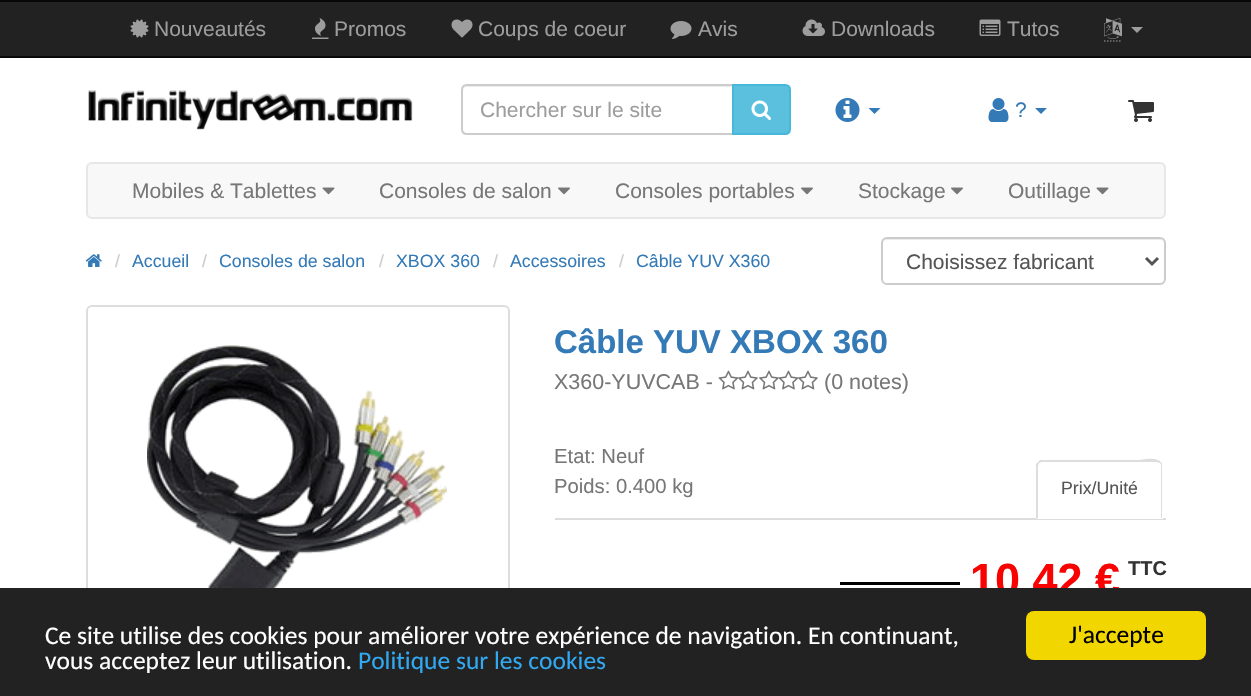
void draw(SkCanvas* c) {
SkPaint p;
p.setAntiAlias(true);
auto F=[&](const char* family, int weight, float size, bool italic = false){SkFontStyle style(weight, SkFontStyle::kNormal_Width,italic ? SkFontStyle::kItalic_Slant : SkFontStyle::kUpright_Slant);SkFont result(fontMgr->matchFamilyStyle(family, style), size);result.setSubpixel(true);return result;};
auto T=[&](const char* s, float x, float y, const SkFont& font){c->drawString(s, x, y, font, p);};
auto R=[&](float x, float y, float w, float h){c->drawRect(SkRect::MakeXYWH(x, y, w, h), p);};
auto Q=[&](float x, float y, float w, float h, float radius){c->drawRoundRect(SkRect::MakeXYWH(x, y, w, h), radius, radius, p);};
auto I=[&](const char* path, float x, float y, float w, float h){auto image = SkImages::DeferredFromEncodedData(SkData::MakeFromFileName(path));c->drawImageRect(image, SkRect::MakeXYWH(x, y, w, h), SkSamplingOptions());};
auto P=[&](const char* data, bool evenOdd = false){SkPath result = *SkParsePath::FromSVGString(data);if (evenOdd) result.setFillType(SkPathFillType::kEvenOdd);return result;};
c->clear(0xffffffff);
p.setColor(0xff222222);
R(0,2,1251,54);
p.setColor(0xff080808);
R(0,0,1251,2);
R(0,56,1251,2);
I("1.png",130,19,19,19);
auto f1 = F("Liberation Sans",400,21);
p.setColor(0xff9d9d9d);
T("Nouveautés",154,36,f1);
I("2.png",312,18,17,21);
T("Promos",334,36,f1);
I("3.png",451,19,22,19);
T("Coups de coeur",478,36,f1);
I("4.png",670,21,22,18);
T("Avis",698,36,f1);
I("5.png",802,19,23,17);
T("Downloads",831,36,f1);
I("6.png",979,19,22,17);
T("Tutos",1007,36,f1);
p.setStroke(true);
p.setStrokeWidth(1.5);
p.setColor(0xff777777);
p.setPathEffect(SkDashPathEffect::Make({{1.5f,1.5f}}, 0));
c->drawPath(P("M1104 41h18"),p);
p.setPathEffect(nullptr);
I("7.png",1104,18,18,21);
p.setStroke(false);
p.setColor(0xff9d9d9d);
c->drawPath(P("M1131 27h12l-6 6z"),p);
I("8.png",88,90,325,40);
p.setColor(0xffececec);
c->drawPath(P("M466 87h266v-1h-265c-3 0-5 3-5 6c0-3 2-5 4-5z"),p);
p.setStroke(true);
p.setStrokeWidth(2);
p.setColor(0xffcccccc);
c->drawPath(P("M467 85h266v49h-266c-3 0-5-2-5-5v-39c0-3 2-5 5-5z"),p);
p.setStroke(false);
p.setColor(0xff9d9d9d);
T("Chercher sur le site",480,117,f1);
p.setColor(0xff5bc0de);
c->drawPath(P("M733 85h52c3 0 5 2 5 5v39c0 3-2 5-5 5h-52z"),p);
p.setStroke(true);
p.setColor(0xff46b8da);
c->drawPath(P("M733 85h52c3 0 5 2 5 5v39c0 3-2 5-5 5h-52z"),p);
I("9.png",751,100,20,20);
I("10.png",835,98,25,24);
p.setStroke(false);
p.setColor(0xff337ab7);
c->drawPath(P("M868.5 108h12l-6 6z"),p);
I("11.png",988,98,21,24);
T("?",1015,117,f1);
c->drawPath(P("M1035 108h12l-6 6z"),p);
I("12.png",1128,100,26,22);
p.setColor(0xfff8f8f8);
c->drawRoundRect(SkRect::MakeXYWH(87,163,1078,55),5,5,p);
p.setStroke(true);
p.setColor(0xffe7e7e7);
c->drawRoundRect(SkRect::MakeXYWH(87,163,1078,55),5,5,p);
p.setStroke(false);
p.setColor(0xff777777);
T("Mobiles & Tablettes",132,198,f1);
I("13.png",322,187,13,8);
T("Consoles de salon",379,198,f1);
I("14.png",558,187,12,8);
T("Consoles portables",615,198,f1);
I("14.png",801,187,12,8);
T("Stockage",858,198,f1);
I("14.png",951,187,12,8);
T("Outillage",1008,198,f1);
I("13.png",1096,187,13,8);
I("15.png",85,254,17,13);
auto f2 = F("Liberation Sans",400,17.75);
p.setColor(0xffcccccc);
T("/",115,267,f2);
p.setColor(0xff337ab7);
T("Accueil",132,267,f2);
p.setColor(0xffcccccc);
T("/",202,267,f2);
p.setColor(0xff337ab7);
T("Consoles de salon",219,267,f2);
p.setColor(0xffcccccc);
T("/",379,267,f2);
p.setColor(0xff337ab7);
T("XBOX 360",396,267,f2);
p.setColor(0xffcccccc);
T("/",493,267,f2);
p.setColor(0xff337ab7);
T("Accessoires",510,267,f2);
p.setColor(0xffcccccc);
T("/",619,267,f2);
p.setColor(0xff337ab7);
T("Câble YUV X360",636,267,f2);
p.setColor(0xffececec);
c->drawPath(P("M886 240h274c2 0 4 2 4 4c0-3-2-5-5-5h-272c-3 0-5 2-5 5c0-2 2-4 4-4z"),p);
p.setStroke(true);
p.setColor(0xffcccccc);
c->drawRoundRect(SkRect::MakeXYWH(882,238,283,46),5,5,p);
p.setStrokeWidth(3);
p.setColor(0xff555555);
c->drawPath(P("M1146 258l6 6l6-6"),p);
p.setStroke(false);
T("Choisissez fabricant",906,269,f1);
p.setStroke(true);
p.setStrokeWidth(2);
p.setColor(0xffdddddd);
c->drawRoundRect(SkRect::MakeXYWH(87,306,422,373),5,5,p);
I("16.png",147,345,300,243);
auto f3 = F("Liberation Sans",700,33);
p.setStroke(false);
p.setColor(0xff337ab7);
T("Câble YUV XBOX 360",554,353,f3);
auto f4 = F("Liberation Sans",400,21.5);
p.setColor(0xff777777);
T("X360-YUVCAB -",554,389,f4);
I("17.png",718,370,21,20);
I("18.png",738,370,20,20);
I("19.png",759,370,20,20);
I("20.png",778,370,21,20);
I("18.png",798,370,20,20);
T("(0 notes)",824,389,f4);
auto f5 = F("Liberation Sans",400,20.25);
T("Etat: Neuf",554,463,f5);
T("Poids: 0.400 kg",554,493,f5);
p.setColor(0xffdddddd);
R(555,518,611,2);
p.setColor(0xffffffff);
c->drawPath(P("M1043 461h114c3.5 0 6 2.5 6 6v52h-126v-52c0-3.5 2.5-6 6-6z"),p);
p.setColor(0xffdddddd);
c->drawPath(P("M1042 462l-3 1l-1-1l2-2h99c0 0 17-4 22 2l-1 1c-1 0-2-1-4-1z"),p);
c->drawPath(P("M1161 462c1 1 1 3 1 4v52h-1v-53l-1-2z"),p);
c->drawPath(P("M1036 519v-55l2-2l1 1l-1 3v52z"),p);
p.setColor(0xff555555);
T("Prix/Unité",1061,494,f2);
p.setColor(0xff000000);
R(840,582,120,3);
auto f6 = F("Liberation Sans",700,45);
p.setColor(0xfff90202);
T("10.42 €",970,595,f6);
auto f7 = F("Liberation Sans",700,20);
p.setColor(0xff333333);
T("TTC",1128,575,f7);
p.setColor(0xff222222);
R(0,588,1251,108);
auto f8 = F("Carlito",400,25.5);
p.setColor(0xffffffff);
T("Ce site utilise des cookies pour améliorer votre expérience de navigation. En continuant,",45,644,f8);
T("vous acceptez leur utilisation.",45,669,f8);
p.setColor(0xff31a8f0);
T("Politique sur les cookies",358,669,f8);
p.setColor(0xfff1d600);
Q(1026,611,180,49,8);
p.setColor(0xff000000);
T("J'accepte",1069,643,f8);
}
